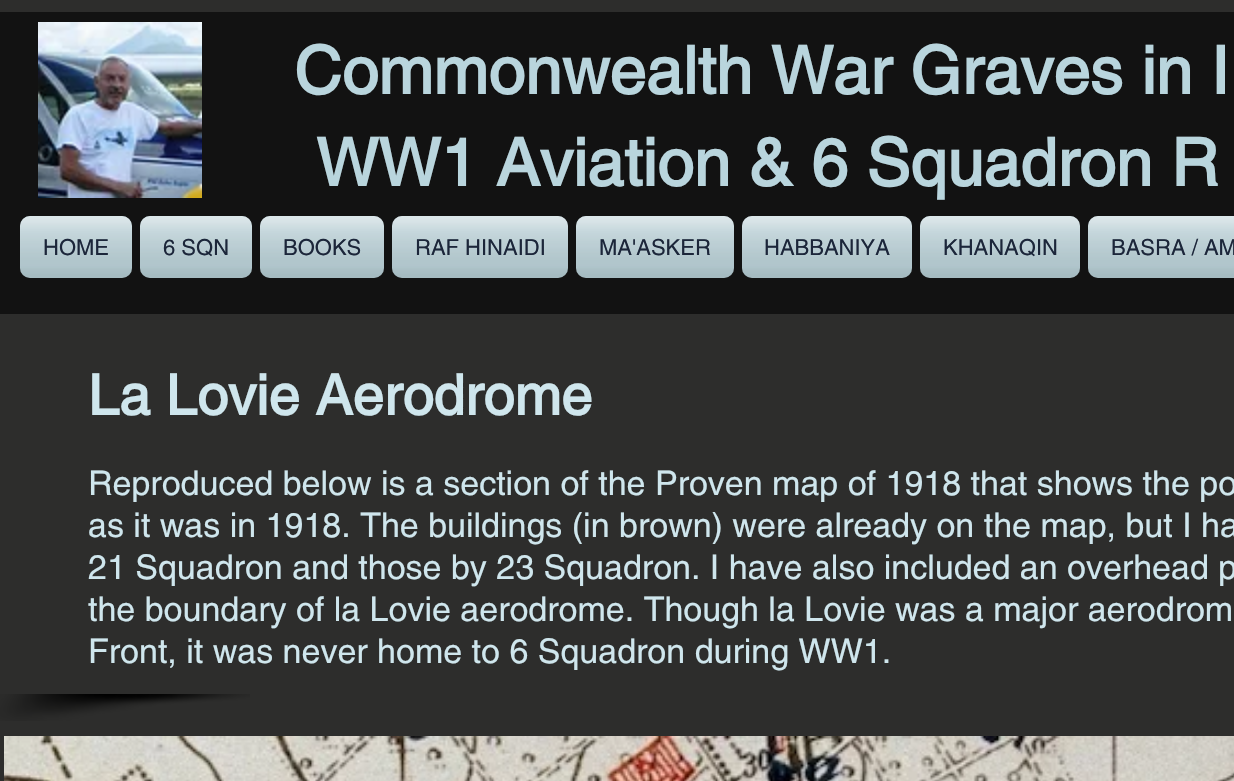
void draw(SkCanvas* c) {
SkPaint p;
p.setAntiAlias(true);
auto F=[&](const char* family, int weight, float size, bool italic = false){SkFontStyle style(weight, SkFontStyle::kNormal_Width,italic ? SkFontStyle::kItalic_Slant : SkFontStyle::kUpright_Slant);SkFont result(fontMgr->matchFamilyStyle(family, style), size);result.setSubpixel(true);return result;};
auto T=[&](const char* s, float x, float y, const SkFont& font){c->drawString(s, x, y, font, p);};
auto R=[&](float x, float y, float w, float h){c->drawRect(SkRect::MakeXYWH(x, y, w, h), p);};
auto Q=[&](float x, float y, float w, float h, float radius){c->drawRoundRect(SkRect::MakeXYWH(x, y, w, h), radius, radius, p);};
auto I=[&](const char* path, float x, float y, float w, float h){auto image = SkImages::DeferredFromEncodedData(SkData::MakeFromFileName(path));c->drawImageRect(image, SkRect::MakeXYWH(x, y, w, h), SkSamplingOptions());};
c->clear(0xff2d2d2c);
p.setColor(0xff121212);
R(0,12,1234,302);
I("1.png",38,22,164,176);
auto f1 = F("helvetica",700,66);
p.setColor(0xffb9d5dd);
T("Commonwealth War Graves in I",294,94,f1);
T("WW1 Aviation & 6 Squadron R",316,186,f1);
Q(20,216,112,62,10);
I("2.png",20,216,112,62);
I("3.png",20,216,112,62);
auto f2 = F("helvetica",400,22);
p.setColor(0xff1c263a);
T("HOME",43,255,f2);
p.setColor(0xffb9d5dd);
Q(140,216,112,62,10);
I("4.png",140,216,112,62);
I("5.png",140,216,112,62);
p.setColor(0xff1c263a);
T("6 SQN",163,255,f2);
p.setColor(0xffb9d5dd);
Q(260,216,124,62,10);
I("6.png",260,216,124,62);
I("7.png",260,216,124,62);
p.setColor(0xff1c263a);
T("BOOKS",283,255,f2);
p.setColor(0xffb9d5dd);
Q(392,216,176,62,10);
I("8.png",392,216,176,62);
I("9.png",392,216,176,62);
p.setColor(0xff1c263a);
T("RAF HINAIDI",415,255,f2);
p.setColor(0xffb9d5dd);
Q(576,216,158,62,10);
I("10.png",576,216,158,62);
I("11.png",576,216,158,62);
p.setColor(0xff1c263a);
T("MA'ASKER",599,255,f2);
p.setColor(0xffb9d5dd);
Q(742,216,170,62,10);
I("12.png",742,216,170,62);
I("13.png",742,216,170,62);
p.setColor(0xff1c263a);
T("HABBANIYA",764,255,f2);
p.setColor(0xffb9d5dd);
Q(920,216,160,62,10);
I("14.png",920,216,160,62);
I("15.png",920,216,160,62);
p.setColor(0xff1c263a);
T("KHANAQIN",943,255,f2);
p.setColor(0xffb9d5dd);
Q(1088,216,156,62,10);
I("16.png",1088,216,146,62);
I("17.png",1088,216,146,62);
p.setColor(0xff1c263a);
T("BASRA / AM",1111,255,f2);
auto f3 = F("helvetica",700,56);
p.setColor(0xffcfe6ed);
T("La Lovie Aerodrome",88,415,f3);
auto f4 = F("helvetica",400,34);
T("Reproduced below is a section of the Proven map of 1918 that shows the po",88,495,f4);
T("as it was in 1918. The buildings (in brown) were already on the map, but I ha",88,537,f4);
T("21 Squadron and those by 23 Squadron. I have also included an overhead p",88,579,f4);
T("the boundary of la Lovie aerodrome. Though la Lovie was a major aerodrom",88,621,f4);
T("Front, it was never home to 6 Squadron during WW1.",88,663,f4);
I("18.png",0,694,250,27);
I("19.png",4,736,1230,45);
}
